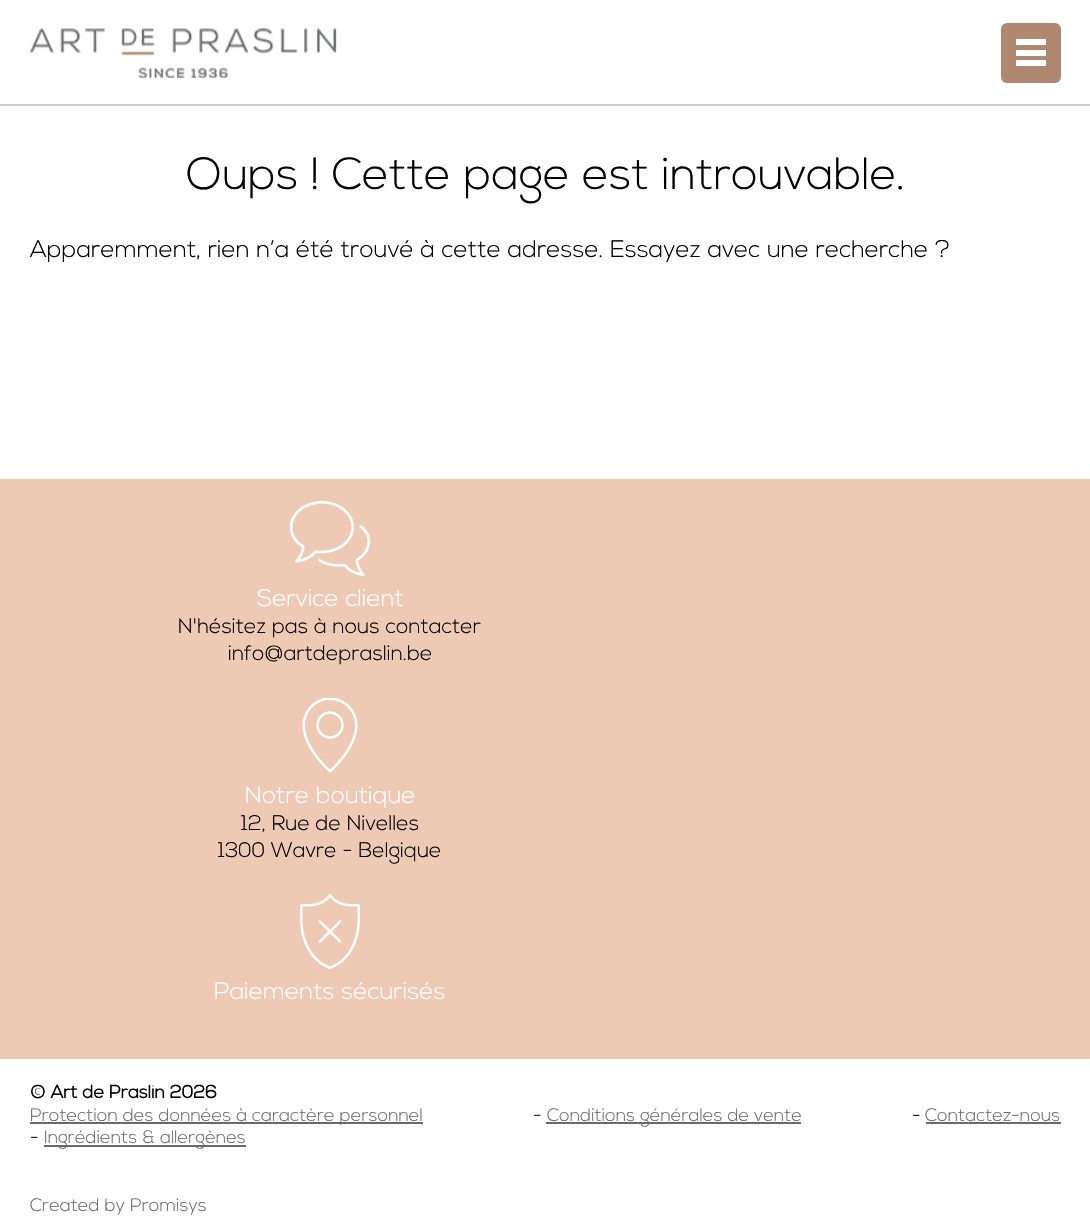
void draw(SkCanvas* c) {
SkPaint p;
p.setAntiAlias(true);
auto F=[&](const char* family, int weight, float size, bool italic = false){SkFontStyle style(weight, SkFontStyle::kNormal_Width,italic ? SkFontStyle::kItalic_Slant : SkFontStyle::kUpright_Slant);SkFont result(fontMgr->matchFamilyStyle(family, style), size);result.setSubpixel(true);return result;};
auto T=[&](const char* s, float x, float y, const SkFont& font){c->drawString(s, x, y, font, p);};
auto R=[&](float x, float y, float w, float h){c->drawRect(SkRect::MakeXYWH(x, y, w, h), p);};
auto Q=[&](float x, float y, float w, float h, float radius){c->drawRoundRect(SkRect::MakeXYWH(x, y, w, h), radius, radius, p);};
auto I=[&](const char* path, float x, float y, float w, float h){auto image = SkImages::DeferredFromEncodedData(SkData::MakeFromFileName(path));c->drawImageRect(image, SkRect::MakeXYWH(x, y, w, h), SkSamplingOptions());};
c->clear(0xffffffff);
p.setColor(0xffb0876f);
Q(1001,23,60,60,6);
p.setColor(0xffffffff);
R(1016,60,30,6);
R(1016,50,30,6);
R(1016,39,30,6);
p.setColor(0xffcccccc);
R(0,104,1090,2);
I("1.png",30,28,307,50);
auto f1 = F("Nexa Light",300,45);
p.setColor(0xff000000);
T("Oups ! Cette page est introuvable.",186,189,f1);
auto f2 = F("Nexa Light",300,24);
T("Apparemment, rien n’a été trouvé à cette adresse. Essayez avec une recherche ?",30,257,f2);
p.setColor(0xffeec9b3);
R(0,479,1090,580);
I("2.png",289,501,82,75);
p.setColor(0xffffffff);
T("Service client",257,606,f2);
auto f3 = F("Nexa Light",300,21);
p.setColor(0xff000000);
T("N'hésitez pas à nous contacter",178,633,f3);
T("info@artdepraslin.be",228,660,f3);
I("3.png",302,698,56,75);
p.setColor(0xffffffff);
T("Notre boutique",245,803,f2);
p.setColor(0xff000000);
T("12, Rue de Nivelles",241,830,f3);
T("1300 Wavre - Belgique",218,857,f3);
I("4.png",300,894,60,75);
p.setColor(0xffffffff);
T("Paiements sécurisés",214,999,f2);
auto f4 = F("Nexa Light",700,18);
p.setColor(0xff000000);
T("© Art de Praslin 2026",30,1098,f4);
p.setColor(0xff686969);
R(30,1122,393,2);
auto f5 = F("Nexa Light",300,18);
T("Protection des données à caractère personnel",30,1121,f5);
p.setColor(0xff000000);
T("-",533,1121,f5);
p.setColor(0xff686969);
R(546,1122,255,2);
T("Conditions générales de vente",547,1121,f5);
p.setColor(0xff000000);
T("-",912,1121,f5);
p.setColor(0xff686969);
T("Contactez-nous",925,1121,f5);
R(926,1122,135,2);
p.setColor(0xff000000);
T("-",30,1143,f5);
p.setColor(0xff686969);
R(44,1145,202,2);
T("Ingrédients & allergènes",44,1143,f5);
T("Created by Promisys",30,1211,f5);
}
